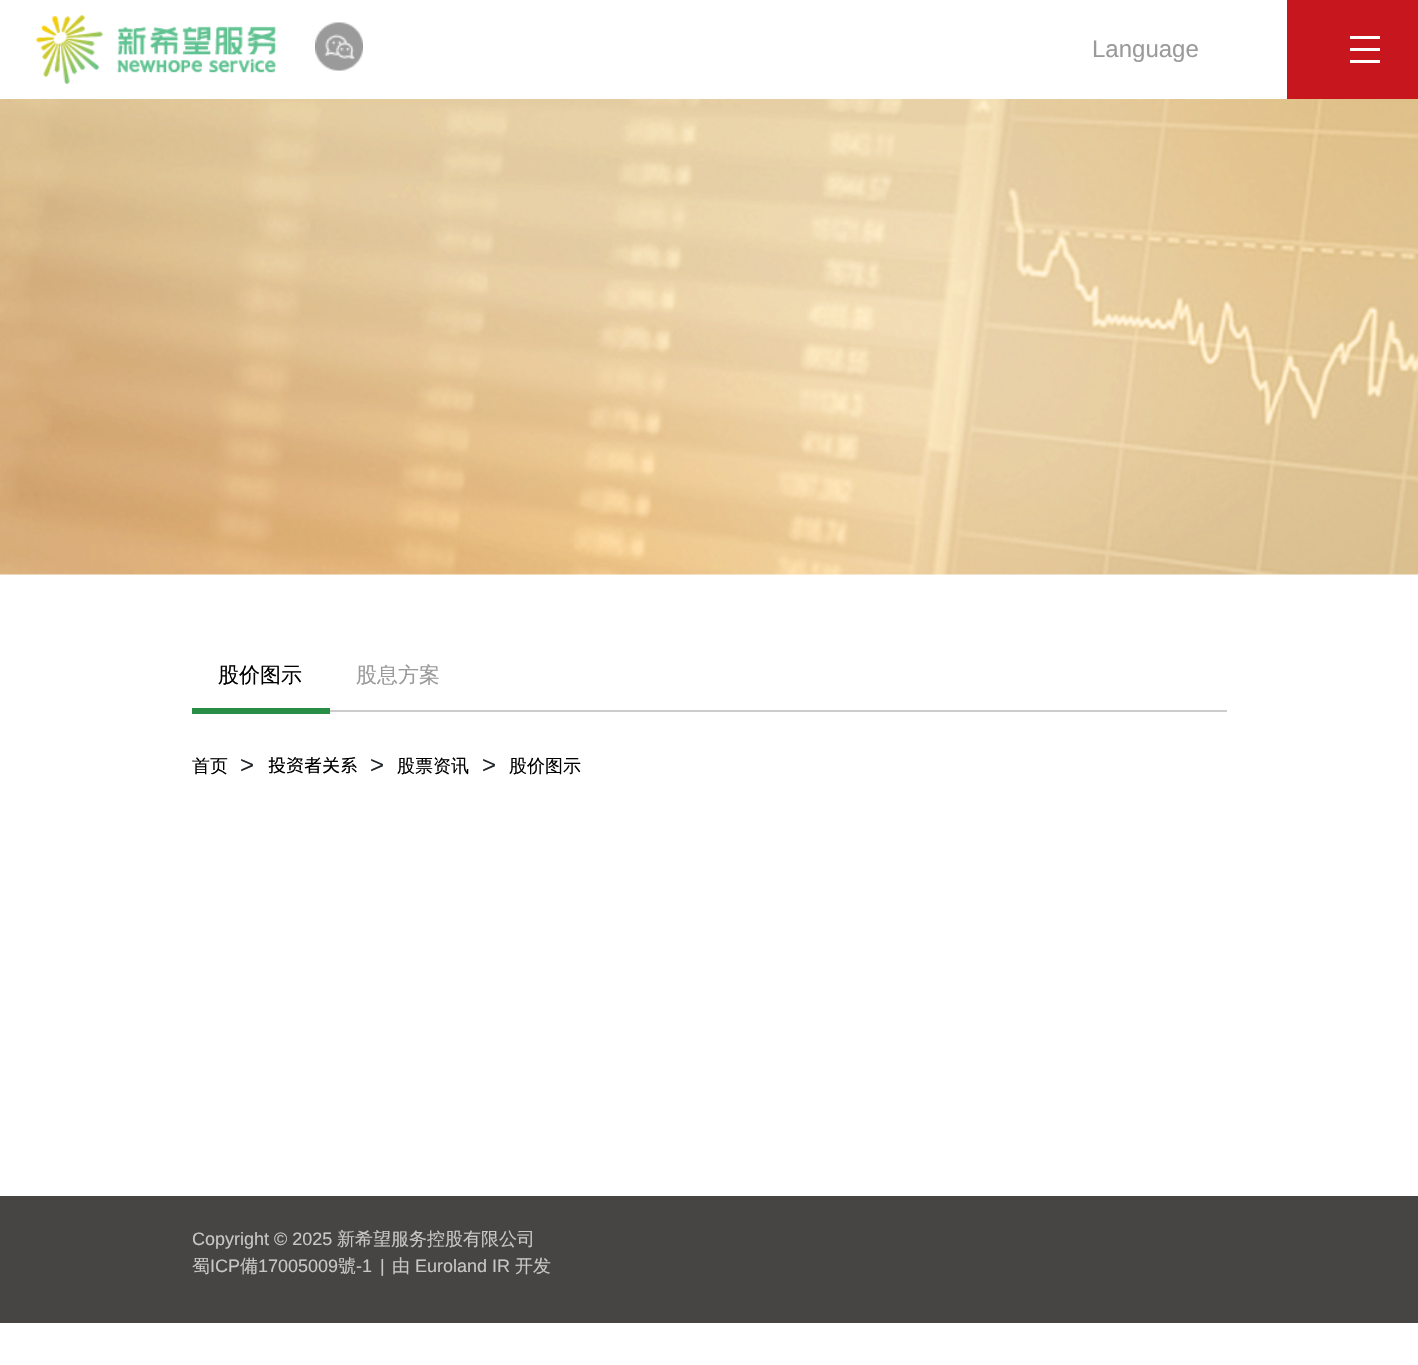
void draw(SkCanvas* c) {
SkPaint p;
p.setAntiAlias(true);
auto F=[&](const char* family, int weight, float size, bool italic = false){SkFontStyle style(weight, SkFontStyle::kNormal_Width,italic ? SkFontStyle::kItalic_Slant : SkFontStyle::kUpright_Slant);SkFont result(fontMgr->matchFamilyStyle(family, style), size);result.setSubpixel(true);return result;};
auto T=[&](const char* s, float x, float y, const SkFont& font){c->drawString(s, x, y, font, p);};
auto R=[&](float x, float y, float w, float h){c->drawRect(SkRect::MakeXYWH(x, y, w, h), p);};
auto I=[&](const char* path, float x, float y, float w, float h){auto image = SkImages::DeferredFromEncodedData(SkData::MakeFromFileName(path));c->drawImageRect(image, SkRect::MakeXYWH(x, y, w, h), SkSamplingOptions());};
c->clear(0xffffffff);
I("1.png",36,15,240,69);
I("2.png",315,22,48,49);
auto f1 = F("Liberation Sans",400,24);
p.setColor(0xff9a9a9a);
T("Language",1092,57,f1);
p.setColor(0xffc8161e);
R(1287,0,131,99);
p.setColor(0xffffffff);
R(1350,36,30,3);
R(1350,48,30,3);
R(1350,60,30,3);
I("3.png",0,99,1418,476);
auto f2 = F("WenQuanYi Zen Hei",500,21);
p.setColor(0xff000000);
T("股价图示",218,682,f2);
p.setColor(0xff288e45);
R(192,708,138,6);
p.setColor(0xff9a9a9a);
T("股息方案",356,682,f2);
p.setColor(0xffcccccc);
R(330,710,897,2);
auto f3 = F("WenQuanYi Zen Hei",500,18);
p.setColor(0xff000000);
T("首页",192,772,f3);
p.setColor(0xff212529);
T(">",240,773,f1);
auto f4 = F("Noto Sans CJK SC",400,18);
p.setColor(0xff000000);
T("投资者关系",268,772,f4);
p.setColor(0xff212529);
T(">",370,773,f1);
p.setColor(0xff000000);
T("股票资讯",397,772,f3);
p.setColor(0xff212529);
T(">",482,773,f1);
p.setColor(0xff000000);
T("股价图示",509,772,f3);
p.setColor(0xff464543);
R(0,1196,1418,127);
auto f5 = F("Liberation Sans",400,18);
p.setColor(0xffc8c7c7);
T("Copyright © 2025",192,1245,f5);
T("新希望服务控股有限公司",337,1245,f3);
T("蜀",192,1272,f3);
T("ICP",210,1272,f5);
T("備",240,1272,f3);
T("17005009",258,1272,f5);
T("號",338,1272,f3);
T("-1",356,1272,f5);
T("|",380,1272,f5);
T("由",392,1272,f3);
T("Euroland IR",415,1272,f5);
T("开发",515,1272,f3);
}
